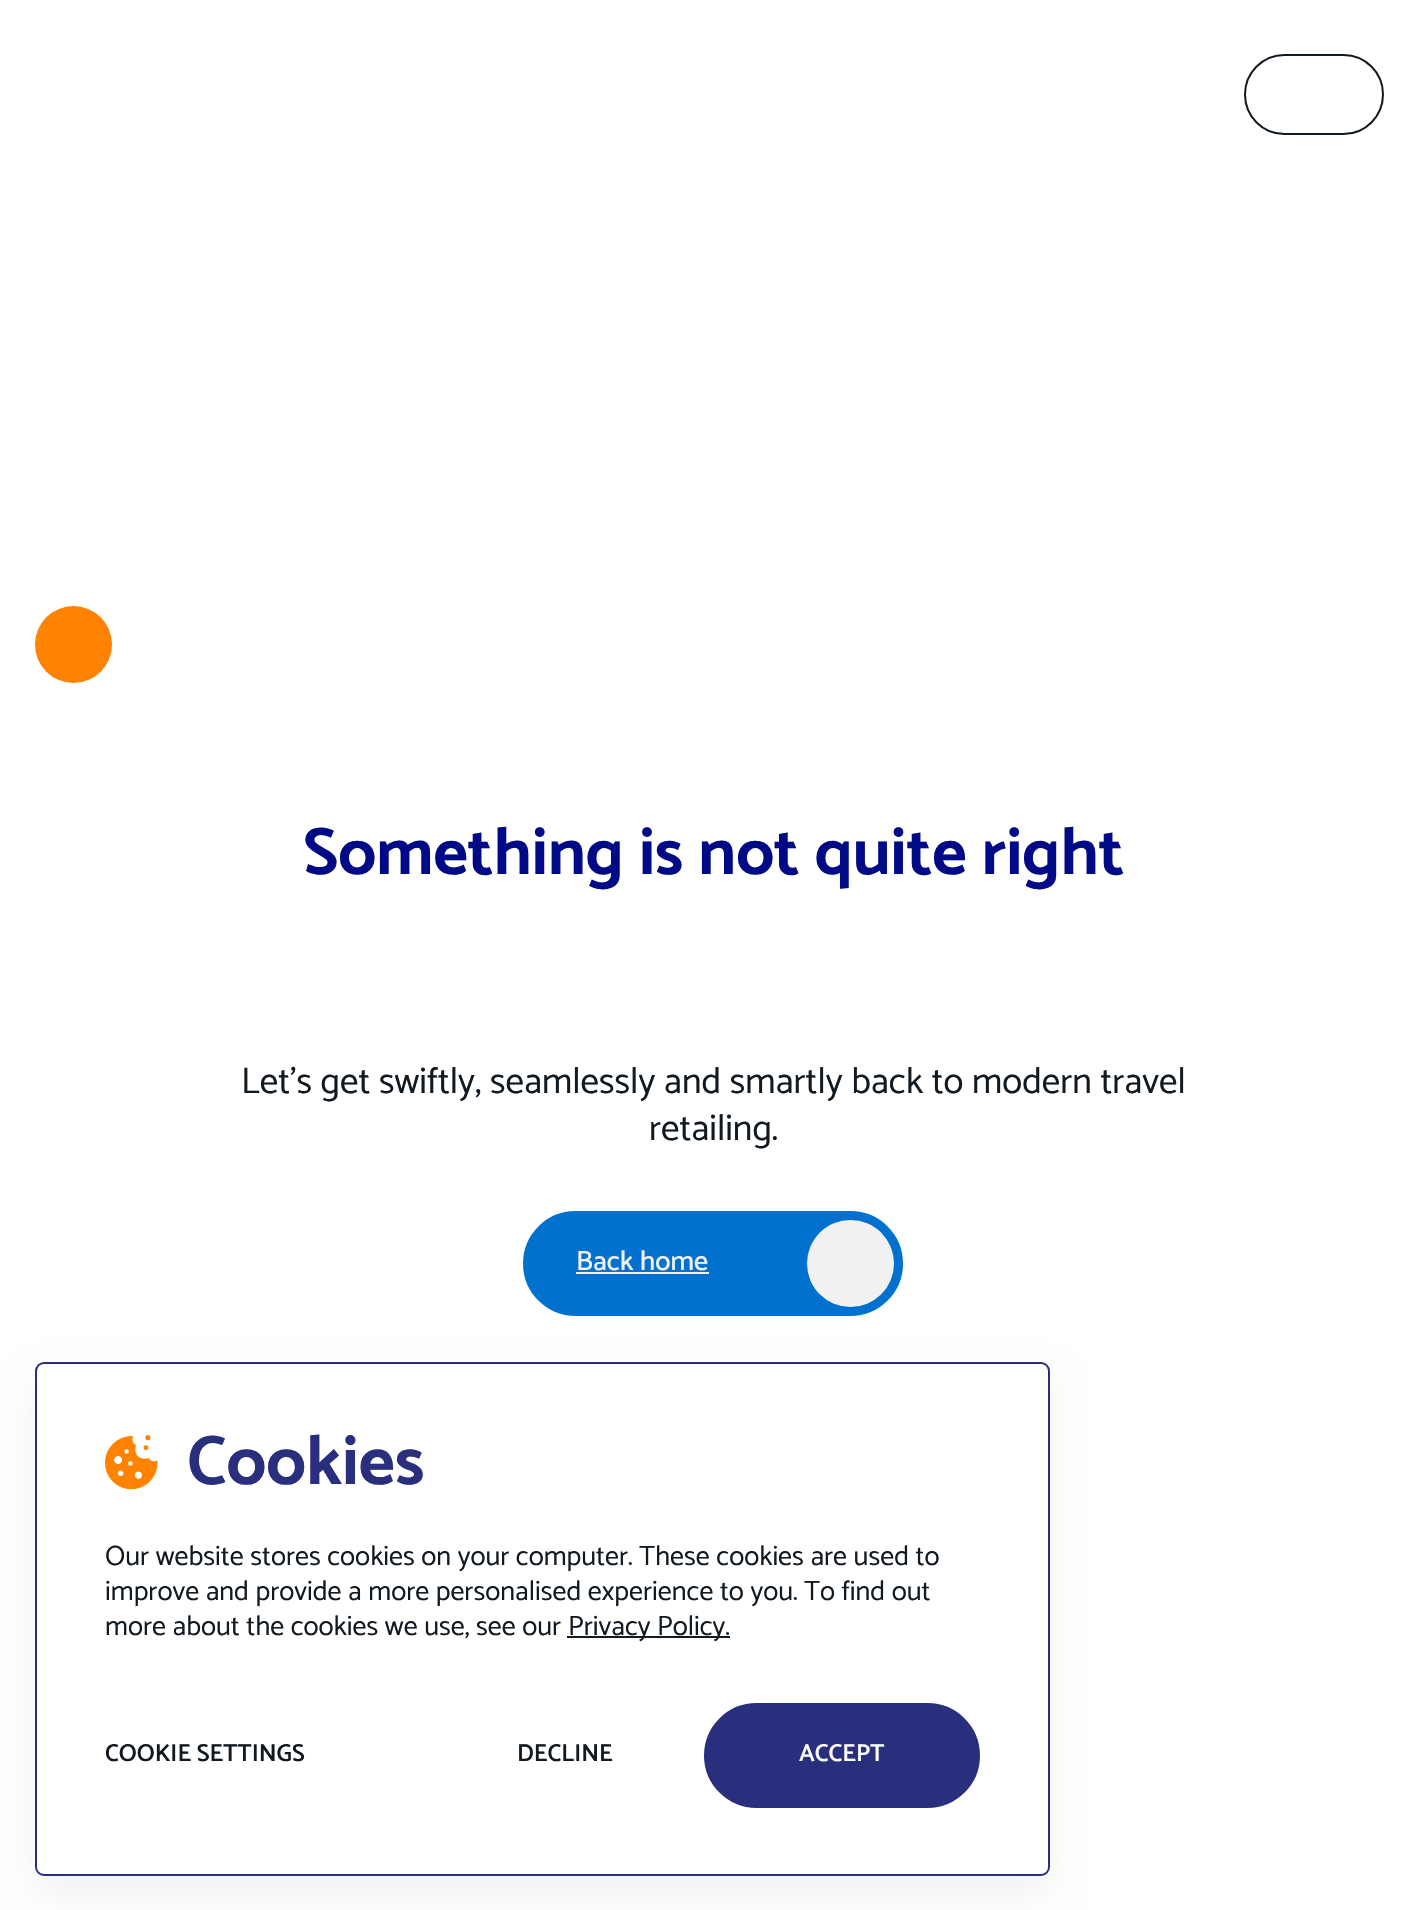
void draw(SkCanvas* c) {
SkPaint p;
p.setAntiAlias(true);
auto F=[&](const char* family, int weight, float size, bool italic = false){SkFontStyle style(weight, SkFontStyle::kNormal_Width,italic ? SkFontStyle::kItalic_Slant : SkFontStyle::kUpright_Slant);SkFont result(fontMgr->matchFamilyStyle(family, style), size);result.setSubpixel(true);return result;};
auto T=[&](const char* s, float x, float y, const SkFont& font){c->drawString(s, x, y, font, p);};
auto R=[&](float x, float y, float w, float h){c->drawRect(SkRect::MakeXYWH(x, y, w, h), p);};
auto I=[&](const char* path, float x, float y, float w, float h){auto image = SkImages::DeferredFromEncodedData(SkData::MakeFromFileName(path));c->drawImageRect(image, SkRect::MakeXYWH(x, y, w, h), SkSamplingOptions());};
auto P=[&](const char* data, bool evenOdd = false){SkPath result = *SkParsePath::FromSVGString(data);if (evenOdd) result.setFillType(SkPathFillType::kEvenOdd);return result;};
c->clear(0xffffffff);
p.setStroke(true);
p.setStrokeWidth(2);
p.setColor(0xff111921);
c->drawRoundRect(SkRect::MakeXYWH(1245,55,138,79),39.5,39.5,p);
p.setStroke(false);
p.setColor(0xffff8300);
c->drawCircle(73.5,644.5,38.5,p);
auto f1 = F("Catamaran",100,66.9);
p.setColor(0xff000a86);
T("Something is not quite right",303,874,f1);
auto f2 = F("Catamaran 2",100,37);
p.setColor(0xff111921);
T("Let’s get swiftly, seamlessly and smartly back to modern travel",241,1093,f2);
T("retailing.",649,1140,f2);
p.setColor(0xff0071ce);
c->drawRoundRect(SkRect::MakeXYWH(527.5,1215.5,371,96),48,48,p);
p.setStroke(true);
p.setStrokeWidth(9);
c->drawRoundRect(SkRect::MakeXYWH(527.5,1215.5,371,96),48,48,p);
auto f3 = F("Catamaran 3",100,28);
p.setStroke(false);
p.setColor(0xfff1f1f1);
T("Back home",576,1270,f3);
R(576,1272,133,2);
c->drawCircle(850.5,1263.5,43.5,p);
c->save();
c->clipPath(P("M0 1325h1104v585h-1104zm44 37h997c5 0 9 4 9 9v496c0 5-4 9-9 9h-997c-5 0-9-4-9-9v-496c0-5 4-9 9-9z",true),true);
p.setColor(0x0d000000);
p.setMaskFilter(SkMaskFilter::MakeBlur(kNormal_SkBlurStyle, 17.5));
c->drawRoundRect(SkRect::MakeXYWH(35,1379,1015,515),9,9,p);
p.setMaskFilter(nullptr);
c->restore();
p.setStroke(true);
p.setStrokeWidth(2);
p.setColor(0xff292f7c);
c->drawRoundRect(SkRect::MakeXYWH(36,1363,1013,512),8,8,p);
I("1.png",105,1435,53,54);
auto f4 = F("Catamaran",100,70);
p.setStroke(false);
T("Cookies",187,1484,f4);
auto f5 = F("Catamaran 2",100,28);
p.setColor(0xff111921);
T("Our website stores cookies on your computer. These cookies are used to",105,1565,f5);
T("improve and provide a more personalised experience to you. To find out",105,1600,f5);
T("more about the cookies we use, see our",105,1635,f5);
R(567,1636,163,2);
T("Privacy Policy.",568,1635,f5);
auto f6 = F("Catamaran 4",100,24.5);
T("COOKIE SETTINGS",105,1761,f6);
T("DECLINE",517,1761,f6);
p.setColor(0xff292f7c);
c->drawRoundRect(SkRect::MakeXYWH(706,1705,272,101),50.5,50.5,p);
p.setStroke(true);
p.setStrokeWidth(4);
c->drawRoundRect(SkRect::MakeXYWH(706,1705,272,101),50.5,50.5,p);
p.setStroke(false);
p.setColor(0xffffffff);
T("ACCEPT",799,1761,f6);
}
